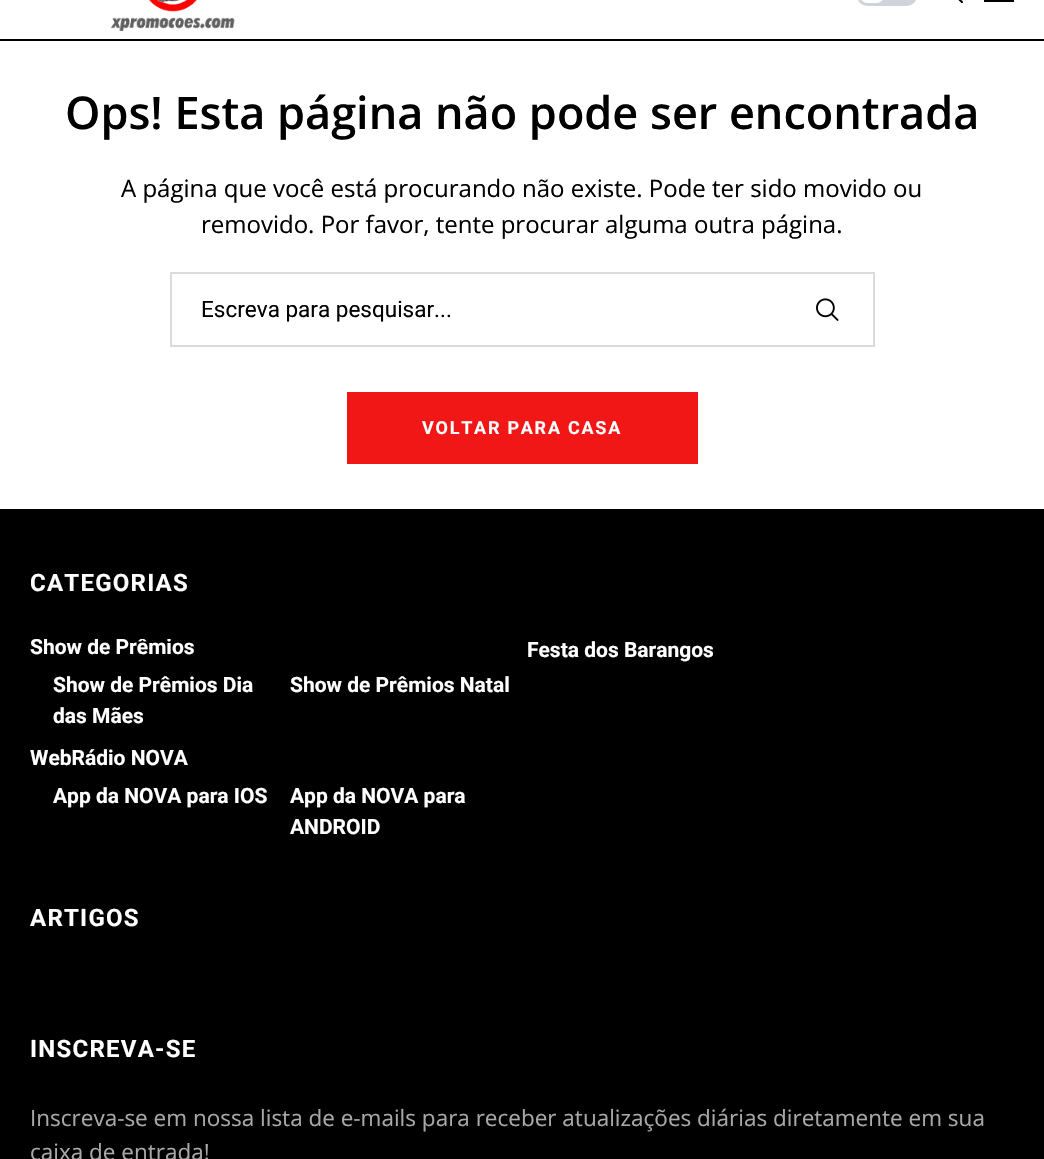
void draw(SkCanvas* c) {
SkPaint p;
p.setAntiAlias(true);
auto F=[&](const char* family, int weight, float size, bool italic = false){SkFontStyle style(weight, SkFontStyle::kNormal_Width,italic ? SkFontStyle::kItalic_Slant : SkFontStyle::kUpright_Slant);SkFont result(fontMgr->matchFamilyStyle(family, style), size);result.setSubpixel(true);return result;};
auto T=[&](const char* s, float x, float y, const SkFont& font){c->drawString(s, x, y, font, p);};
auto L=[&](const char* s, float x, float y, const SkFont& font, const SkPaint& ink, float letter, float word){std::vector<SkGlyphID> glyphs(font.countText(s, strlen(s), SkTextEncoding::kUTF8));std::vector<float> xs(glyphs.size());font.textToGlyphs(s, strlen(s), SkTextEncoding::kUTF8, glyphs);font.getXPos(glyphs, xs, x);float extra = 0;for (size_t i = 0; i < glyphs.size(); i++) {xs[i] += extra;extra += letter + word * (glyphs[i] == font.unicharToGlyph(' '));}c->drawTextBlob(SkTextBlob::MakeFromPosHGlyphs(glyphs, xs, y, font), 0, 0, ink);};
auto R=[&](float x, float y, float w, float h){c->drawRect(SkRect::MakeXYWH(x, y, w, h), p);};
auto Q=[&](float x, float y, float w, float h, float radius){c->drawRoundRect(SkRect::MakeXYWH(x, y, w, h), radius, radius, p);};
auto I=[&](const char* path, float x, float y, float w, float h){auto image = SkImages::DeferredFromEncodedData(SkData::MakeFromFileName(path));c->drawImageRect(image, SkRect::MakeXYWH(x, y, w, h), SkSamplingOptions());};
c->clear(0xffffffff);
p.setColor(0xff000000);
R(0,39,1044,2);
p.setColor(0xffced4da);
Q(857,-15,60,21,15);
p.setColor(0xffffffff);
Q(860,-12,24,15,12);
I("1.png",958,0,5,4);
p.setColor(0xff000000);
R(984,0,30,2);
I("2.png",110,0,125,31);
auto f1 = F("Open Sans",600,45);
T("Ops! Esta página não pode ser encontrada",65,129,f1);
auto f2 = F("Open Sans",400,24);
T("A página que você está procurando não existe. Pode ter sido movido ou",121,197,f2);
T("removido. Por favor, tente procurar alguma outra página.",201,233,f2);
p.setStroke(true);
p.setStrokeWidth(2);
p.setColor(0xffdbdbdb);
c->drawRect(SkRect::MakeXYWH(171,273,703,73),p);
auto f3 = F("Roboto",400,22.5);
p.setStroke(false);
p.setColor(0xff000000);
T("Escreva para pesquisar...",201,317,f3);
I("3.png",816,298,23,23);
p.setColor(0xfff21717);
R(347,392,351,72);
auto f4 = F("Roboto",700,18);
p.setColor(0xffffffff);
L("VOLTAR PARA CASA",422,434,f4,p,1.75,0);
p.setColor(0xff000000);
R(0,509,1044,650);
auto f5 = F("Roboto",700,24);
p.setColor(0xffffffff);
L("CATEGORIAS",30,591,f5,p,1.25,0);
c->save();
c->clipRect(SkRect::MakeXYWH(30,639,984,204));
auto f6 = F("Roboto",700,21);
T("Show de Prêmios",30,654,f6);
c->restore();
T("Show de Prêmios Dia",53,692,f6);
T("das Mães",53,723,f6);
T("Show de Prêmios Natal",290,692,f6);
T("Festa dos Barangos",527,657,f6);
T("WebRádio NOVA",30,765,f6);
T("App da NOVA para IOS",53,803,f6);
T("App da NOVA para",290,803,f6);
T("ANDROID",290,834,f6);
L("ARTIGOS",30,926,f5,p,1.25,0);
L("INSCREVA-SE",30,1057,f5,p,1.25,0);
auto f7 = F("Open Sans",400,22.5);
p.setColor(0xffa8a8aa);
T("Inscreva-se em nossa lista de e-mails para receber atualizações diárias diretamente em sua",30,1126,f7);
T("caixa de entrada!",30,1160,f7);
}
